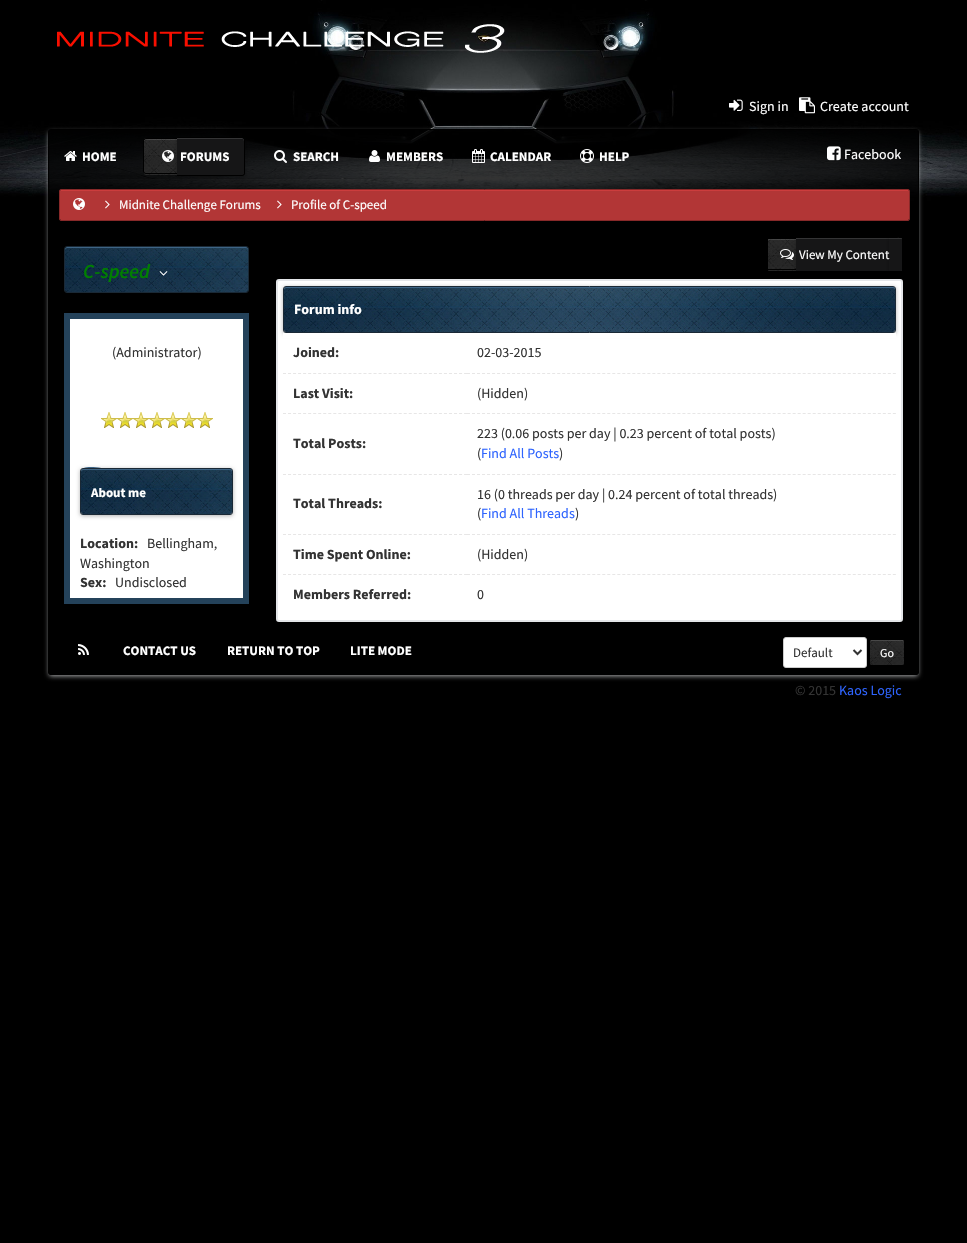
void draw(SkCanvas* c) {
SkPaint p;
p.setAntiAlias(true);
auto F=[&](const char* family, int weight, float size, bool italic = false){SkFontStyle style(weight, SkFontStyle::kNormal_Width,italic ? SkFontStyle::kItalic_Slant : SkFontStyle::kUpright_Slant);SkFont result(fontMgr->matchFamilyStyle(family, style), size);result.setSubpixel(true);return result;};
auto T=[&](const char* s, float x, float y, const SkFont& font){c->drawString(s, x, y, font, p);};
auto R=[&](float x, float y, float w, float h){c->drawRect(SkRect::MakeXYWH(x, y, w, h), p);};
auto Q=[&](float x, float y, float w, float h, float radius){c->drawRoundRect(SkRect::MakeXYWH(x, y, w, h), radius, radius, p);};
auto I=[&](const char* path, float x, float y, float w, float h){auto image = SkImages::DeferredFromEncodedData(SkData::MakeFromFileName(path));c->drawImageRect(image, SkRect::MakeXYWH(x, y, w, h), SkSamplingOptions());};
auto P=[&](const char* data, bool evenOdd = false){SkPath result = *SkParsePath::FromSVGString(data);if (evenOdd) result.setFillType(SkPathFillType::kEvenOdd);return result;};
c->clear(0xff000000);
I("1.png",0,0,967,201);
I("2.png",57,24,448,29);
I("3.png",729,99,14,12);
auto f1 = F("Source Sans Pro",400,14);
p.setColor(0xffffffff);
T("Sign in",749,111,f1);
I("4.png",799,97,16,17);
T("Create account",820,111,f1);
c->save();
c->clipPath(P("M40 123h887v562h-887zm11 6h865c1.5 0 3 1.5 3 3v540c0 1.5-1.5 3-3 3h-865c-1.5 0-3-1.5-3-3v-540c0-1.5 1.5-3 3-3z",true),true);
p.setColor(0xffadaeaf);
p.setMaskFilter(SkMaskFilter::MakeBlur(kNormal_SkBlurStyle, 2.5));
c->drawRoundRect(SkRect::MakeXYWH(49,132,869,544),2,2,p);
p.setMaskFilter(nullptr);
c->restore();
p.setColor(0xcc000000);
c->drawRoundRect(SkRect::MakeXYWH(48.5,129.5,870,545),2.5,2.5,p);
p.setStroke(true);
p.setStrokeWidth(1);
p.setColor(0xff000000);
c->drawRoundRect(SkRect::MakeXYWH(48.5,129.5,870,545),2.5,2.5,p);
I("5.png",64,151,13,10);
auto f2 = F("Source Sans Pro",700,13);
p.setStroke(false);
p.setColor(0xffffffff);
T("HOME",82,161,f2);
I("6.png",144,138,100,37);
p.setColor(0x21ffffff);
c->drawPath(P("M146 140h31v-1h-31c-1 0-2 1-2 2v1c0-1 1-2 2-2z"),p);
p.setColor(0xff000000);
c->drawPath(P("M146 138h31v36h-31c-1.5 0-3-1.5-3-3v-30c0-1.5 1.5-3 3-3zm0 1h31v34h-31c-1 0-2-1-2-2v-30c0-1 1-2 2-2z",true),p);
p.setColor(0x4d000000);
p.setMaskFilter(SkMaskFilter::MakeBlur(kNormal_SkBlurStyle, 2));
c->drawRoundRect(SkRect::MakeXYWH(177,138,68,39),3,3,p);
p.setMaskFilter(nullptr);
p.setColor(0xff161617);
c->drawPath(P("M177 138h65c1 0 2 1 2 2v33c0 1-1 2-2 2h-65z"),p);
p.setColor(0xff343435);
c->drawPath(P("M177 139h66l1 2v-1c0-1-1-2-2-2h-65z"),p);
p.setColor(0xff000000);
c->drawPath(P("M177 137h65c2 0 3 1 3 3v33c0 2-1 3-3 3h-65zm0 1h65c1 0 2 1 2 2v33c0 1-1 2-2 2h-65z",true),p);
I("7.png",162,150,12,12);
p.setColor(0xffffffff);
T("FORUMS",180,161,f2);
I("8.png",274,150,13,13);
T("SEARCH",293,161,f2);
I("9.png",369,150,11,12);
T("MEMBERS",386,161,f2);
I("10.png",472,149,13,14);
T("CALENDAR",490,161,f2);
I("11.png",580,149,14,14);
T("HELP",599,161,f2);
I("12.png",827,146,14,15);
T("Facebook",844,159,f1);
p.setColor(0xffb23636);
Q(60,190,849,30,1);
p.setColor(0xffcc3d3d);
c->drawPath(P("M61 191h847c1 0 1 0 1 1v-1l-1-1h-847l-1 1v1c0-1 0-1 1-1z"),p);
p.setStroke(true);
p.setColor(0xff882929);
c->drawRoundRect(SkRect::MakeXYWH(59.5,189.5,850,31),1.5,1.5,p);
I("13.png",73,198,12,12);
I("14.png",105,200,5,9);
auto f3 = F("Source Sans Pro",400,13);
p.setStroke(false);
p.setColor(0xffffffff);
T("Midnite Challenge Forums",119,209,f3);
I("14.png",277,200,5,9);
T("Profile of C-speed",291,209,f3);
I("15.png",65,247,183,45);
p.setColor(0xff3d6485);
c->drawPath(P("M67 248h179c1 0 2 1 2 2v-1c0-1-1-2-2-2h-179c-1 0-2 1-2 2v1c0-1 1-2 2-2z"),p);
p.setStroke(true);
p.setColor(0xff1a2936);
c->drawRoundRect(SkRect::MakeXYWH(64.5,246.5,184,46),2.5,2.5,p);
auto f4 = F("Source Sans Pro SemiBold",600,20,true);
p.setStroke(false);
p.setColor(0xff008000);
T("C-speed",83,278,f4);
I("16.png",159,271,9,5);
p.setColor(0xffffffff);
c->drawRect(SkRect::MakeXYWH(67,316,179,285),p);
p.setStroke(true);
p.setStrokeWidth(6);
p.setColor(0xff24425a);
c->drawRect(SkRect::MakeXYWH(67,316,179,285),p);
p.setStroke(false);
p.setColor(0xff333333);
T("(Administrator)",112,357,f1);
I("17.png",101,412,16,16);
I("17.png",117,412,16,16);
I("17.png",133,412,16,16);
I("17.png",149,412,16,16);
I("17.png",165,412,16,16);
I("17.png",181,412,16,16);
I("17.png",197,412,16,16);
p.setColor(0x4d000000);
p.setMaskFilter(SkMaskFilter::MakeBlur(kNormal_SkBlurStyle, 2));
c->drawRoundRect(SkRect::MakeXYWH(80,469,153,47),3,3,p);
p.setMaskFilter(nullptr);
I("18.png",81,469,151,45);
p.setColor(0xff3d6485);
c->drawPath(P("M83 470h147c1 0 2 1 2 2c0-1 0-2-1-3h-123c-3 0-27-6-27 3c0-1 1-2 2-2z"),p);
p.setStroke(true);
p.setStrokeWidth(1);
p.setColor(0xff1a2936);
c->drawRoundRect(SkRect::MakeXYWH(80.5,468.5,152,46),2.5,2.5,p);
p.setStroke(false);
p.setColor(0xffffffff);
T("About me",91,497,f2);
auto f5 = F("Source Sans Pro",700,14);
p.setColor(0xff333333);
T("Location:",80,548,f5);
T("Bellingham,",147,548,f1);
T("Washington",80,568,f1);
T("Sex:",80,587,f5);
T("Undisclosed",115,587,f1);
I("19.png",768,238,134,33);
p.setColor(0x21ffffff);
c->drawPath(P("M769 240h27v-1h-27c-.5 0-1 .5-1 1v1.5c0-1 .5-1.5 1-1.5z"),p);
p.setColor(0xff000000);
R(768,238,28,1);
R(768,269,28,1);
p.setColor(0xffffffff);
c->drawRoundRect(SkRect::MakeXYWH(277,280,625,341),2,2,p);
p.setStroke(true);
p.setStrokeWidth(2);
p.setColor(0xffe4e6e9);
c->drawRoundRect(SkRect::MakeXYWH(277,280,625,341),2,2,p);
p.setStroke(false);
p.setColor(0x4d000000);
p.setMaskFilter(SkMaskFilter::MakeBlur(kNormal_SkBlurStyle, 2));
c->drawRect(SkRect::MakeXYWH(796,238,93,35),p);
p.setMaskFilter(nullptr);
p.setColor(0xff161617);
R(796,239,93,32);
p.setColor(0xff343435);
R(796,238,93,1);
p.setColor(0x4d000000);
p.setMaskFilter(SkMaskFilter::MakeBlur(kNormal_SkBlurStyle, 2));
c->drawRoundRect(SkRect::MakeXYWH(889,238,14,35),2,2,p);
p.setMaskFilter(nullptr);
p.setColor(0xff161617);
c->drawPath(P("M889 238h12c.5 0 1 .5 1 1v31c0 .5-.5 1-1 1h-12z"),p);
p.setColor(0x21ffffff);
c->drawPath(P("M889 239h13v1c0-3-2-2-5-2h-8z"),p);
p.setColor(0xff000000);
R(899,237,3,1);
I("20.png",780,249,14,11);
p.setColor(0xffffffff);
T("View My Content",799,259,f3);
p.setColor(0x4d000000);
p.setMaskFilter(SkMaskFilter::MakeBlur(kNormal_SkBlurStyle, 2));
c->drawRoundRect(SkRect::MakeXYWH(283,287,613,47),3,3,p);
p.setMaskFilter(nullptr);
I("21.png",284,287,611,45);
p.setColor(0xff3d6485);
c->drawPath(P("M286 288h607c1 0 2 1 2 2c0-1 0-3-2-3h-607l-2 1v2c0-1 1-2 2-2z"),p);
p.setStroke(true);
p.setStrokeWidth(1);
p.setColor(0xff1a2936);
c->drawRoundRect(SkRect::MakeXYWH(283.5,286.5,612,46),2.5,2.5,p);
p.setStroke(false);
p.setColor(0xffffffff);
T("Forum info",294,314,f5);
R(283,333,613,5);
p.setStroke(true);
p.setColor(0xffe7e6e6);
p.setPathEffect(SkDashPathEffect::Make({{3,2.03f}}, 0));
c->drawPath(P("M283 373.5h184"),p);
p.setPathEffect(nullptr);
p.setStroke(false);
p.setColor(0xff333333);
T("Joined:",293,357,f5);
p.setStroke(true);
p.setColor(0xffe7e6e6);
p.setPathEffect(SkDashPathEffect::Make({{3,2.01f}}, 0));
c->drawPath(P("M467 373.5h429"),p);
p.setPathEffect(nullptr);
p.setStroke(false);
p.setColor(0xff333333);
T("02-03-2015",477,357,f1);
p.setStroke(true);
p.setColor(0xffe7e6e6);
p.setPathEffect(SkDashPathEffect::Make({{3,2.03f}}, 0));
c->drawPath(P("M283 413.5h184"),p);
p.setPathEffect(nullptr);
p.setStroke(false);
p.setColor(0xff333333);
T("Last Visit:",293,398,f5);
p.setStroke(true);
p.setColor(0xffe7e6e6);
p.setPathEffect(SkDashPathEffect::Make({{3,2.01f}}, 0));
c->drawPath(P("M467 413.5h429"),p);
p.setPathEffect(nullptr);
p.setStroke(false);
p.setColor(0xff333333);
T("(Hidden)",477,398,f1);
p.setStroke(true);
p.setColor(0xffe7e6e6);
p.setPathEffect(SkDashPathEffect::Make({{3,2.03f}}, 0));
c->drawPath(P("M283 474.5h184"),p);
p.setPathEffect(nullptr);
p.setStroke(false);
p.setColor(0xff333333);
T("Total Posts:",293,448,f5);
p.setStroke(true);
p.setColor(0xffe7e6e6);
p.setPathEffect(SkDashPathEffect::Make({{3,2.01f}}, 0));
c->drawPath(P("M467 474.5h429"),p);
p.setPathEffect(nullptr);
p.setStroke(false);
p.setColor(0xff333333);
T("223 (0.06 posts per day | 0.23 percent of total posts)",477,438,f1);
T("(",477,458,f1);
p.setColor(0xff2e64fe);
T("Find All Posts",481,458,f1);
p.setColor(0xff333333);
T(")",559,458,f1);
p.setStroke(true);
p.setColor(0xffe7e6e6);
p.setPathEffect(SkDashPathEffect::Make({{3,2.03f}}, 0));
c->drawPath(P("M283 534.5h184"),p);
p.setPathEffect(nullptr);
p.setStroke(false);
p.setColor(0xff333333);
T("Total Threads:",293,508,f5);
p.setStroke(true);
p.setColor(0xffe7e6e6);
p.setPathEffect(SkDashPathEffect::Make({{3,2.01f}}, 0));
c->drawPath(P("M467 534.5h429"),p);
p.setPathEffect(nullptr);
p.setStroke(false);
p.setColor(0xff333333);
T("16 (0 threads per day | 0.24 percent of total threads)",477,499,f1);
T("(",477,518,f1);
p.setColor(0xff2e64fe);
T("Find All Threads",481,518,f1);
p.setColor(0xff333333);
T(")",575,518,f1);
p.setStroke(true);
p.setColor(0xffe7e6e6);
p.setPathEffect(SkDashPathEffect::Make({{3,2.03f}}, 0));
c->drawPath(P("M283 574.5h184"),p);
p.setPathEffect(nullptr);
p.setStroke(false);
p.setColor(0xff333333);
T("Time Spent Online:",293,559,f5);
p.setStroke(true);
p.setColor(0xffe7e6e6);
p.setPathEffect(SkDashPathEffect::Make({{3,2.01f}}, 0));
c->drawPath(P("M467 574.5h429"),p);
p.setPathEffect(nullptr);
p.setStroke(false);
p.setColor(0xff333333);
T("(Hidden)",477,559,f1);
T("Members Referred:",293,599,f5);
T("0",477,599,f1);
I("22.png",78,644,11,11);
p.setColor(0xffffffff);
T("CONTACT US",123,655,f2);
T("RETURN TO TOP",227,655,f2);
T("LITE MODE",350,655,f2);
c->drawRoundRect(SkRect::MakeXYWH(783.5,637.5,83,30),2.5,2.5,p);
p.setStroke(true);
p.setColor(0xffcccccc);
c->drawRoundRect(SkRect::MakeXYWH(783.5,637.5,83,30),2.5,2.5,p);
p.setStrokeWidth(2);
p.setColor(0xff333333);
c->drawPath(P("M853.5 650l4 4l4-4"),p);
p.setStroke(false);
T("Default",793,657,f3);
I("23.png",870,640,34,25);
p.setColor(0x21ffffff);
c->drawPath(P("M871 641h32c1 0 1 0 1 1c0-3.5-3-2-6.5-2h-21c-3.5 0-6.5-1.5-6.5 2c0-1 0-1 1-1z"),p);
p.setStroke(true);
p.setStrokeWidth(1);
p.setColor(0xff000000);
c->drawRoundRect(SkRect::MakeXYWH(869.5,639.5,35,26),1.5,1.5,p);
auto f6 = F("Source Sans Pro",400,12);
p.setStroke(false);
p.setColor(0xffffffff);
T("Go",880,657,f6);
p.setColor(0xff333333);
T("© 2015",795,695,f1);
p.setColor(0xff2e64fe);
T("Kaos Logic",839,695,f1);
}
